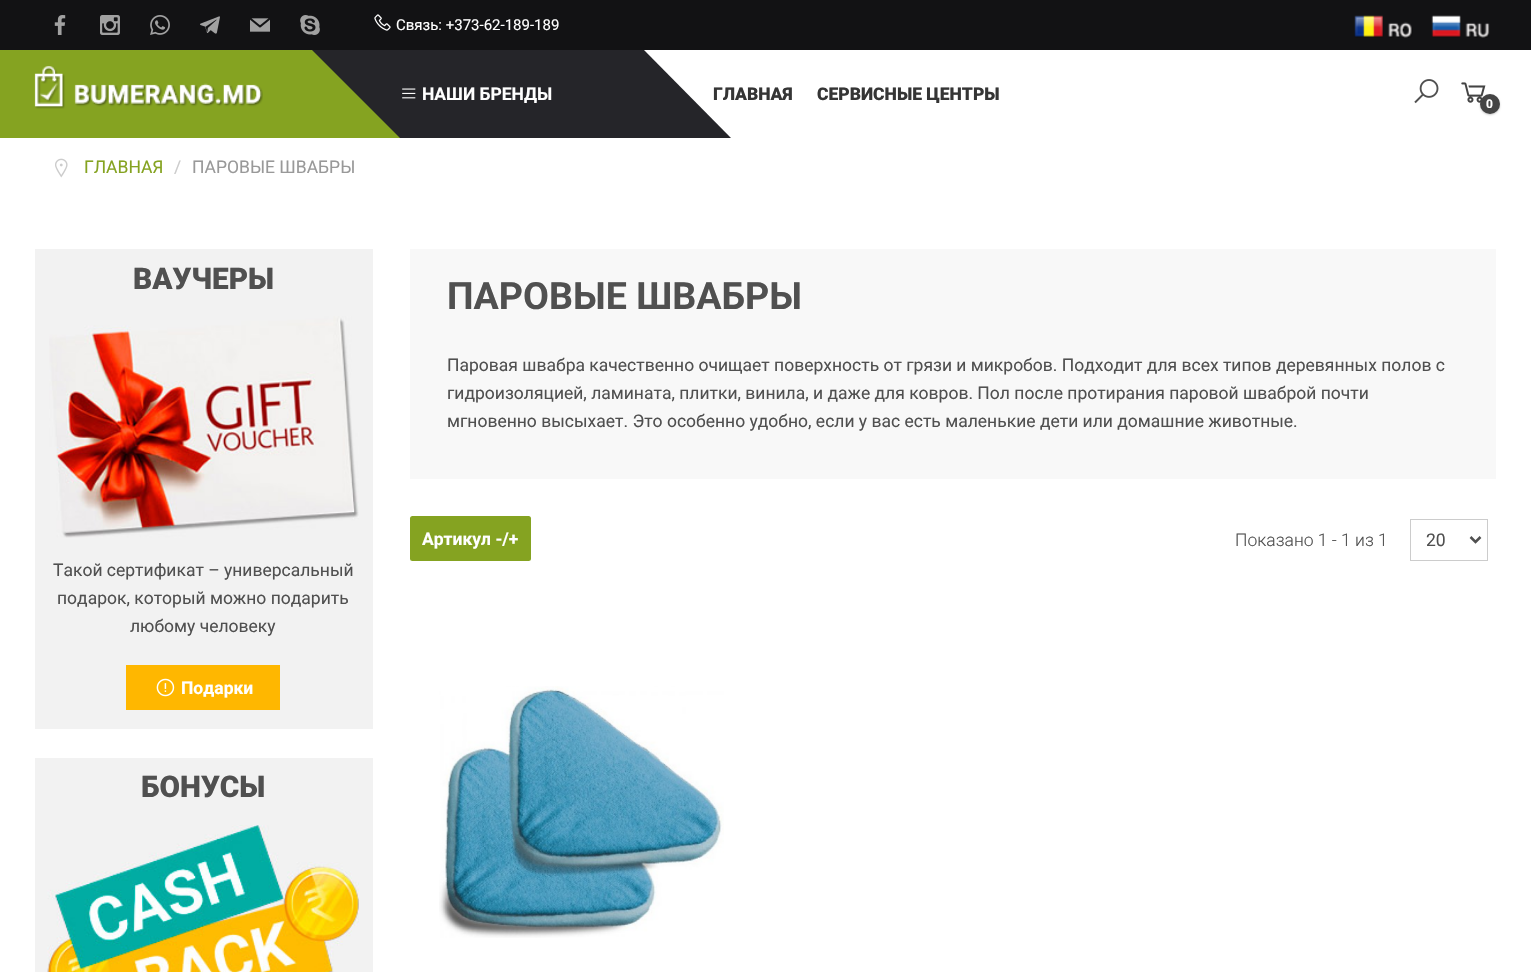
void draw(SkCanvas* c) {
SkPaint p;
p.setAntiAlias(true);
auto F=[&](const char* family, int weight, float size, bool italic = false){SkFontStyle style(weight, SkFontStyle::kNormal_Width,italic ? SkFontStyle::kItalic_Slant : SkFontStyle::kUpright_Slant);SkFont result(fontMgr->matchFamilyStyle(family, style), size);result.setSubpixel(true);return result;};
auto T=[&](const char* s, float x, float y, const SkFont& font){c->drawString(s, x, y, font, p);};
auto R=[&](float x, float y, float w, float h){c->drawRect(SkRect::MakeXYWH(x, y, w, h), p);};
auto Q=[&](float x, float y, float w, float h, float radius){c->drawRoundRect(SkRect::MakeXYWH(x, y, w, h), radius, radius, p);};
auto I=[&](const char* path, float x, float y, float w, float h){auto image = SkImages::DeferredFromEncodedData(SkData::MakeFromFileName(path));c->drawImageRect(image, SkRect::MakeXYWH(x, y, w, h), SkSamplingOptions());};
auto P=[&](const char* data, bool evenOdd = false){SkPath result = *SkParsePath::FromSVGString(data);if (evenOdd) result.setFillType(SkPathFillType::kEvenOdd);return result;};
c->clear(0xffffffff);
p.setColor(0xff121214);
R(0,0,1531,50);
I("1.png",54,15,12,20);
I("2.png",100,15,20,20);
I("3.png",150,15,20,20);
I("4.png",200,16,20,18);
I("5.png",250,18,20,14);
I("6.png",300,15,20,20);
I("7.png",374,14,17,17);
auto f1 = F("Roboto",400,15);
p.setColor(0xffffffff);
T("Связь: +373-62-189-189",396,30,f1);
I("8.png",1354,15,59,23);
I("9.png",1431,15,59,23);
p.setColor(0xff85a321);
R(0,50,400,88);
I("10.png",34,66,229,43);
p.setColor(0xff252529);
c->drawPath(P("M400 50v88l-88-88z"),p);
R(400,50,244,88);
I("11.png",402,88,14,11);
auto f2 = F("Roboto",700,17.5);
p.setColor(0xffffffff);
T("НАШИ БРЕНДЫ",422,100,f2);
p.setColor(0xff252529);
c->drawPath(P("M644 138v-88l87 88z"),p);
auto f3 = F("Roboto",900,17.5);
p.setColor(0xff353535);
T("ГЛАВНАЯ",713,100,f3);
T("СЕРВИСНЫЕ ЦЕНТРЫ",817,100,f3);
I("12.png",1414,79,25,25);
I("13.png",1461,82,25,21);
p.setColor(0x38000000);
p.setMaskFilter(SkMaskFilter::MakeBlur(kNormal_SkBlurStyle, 1));
c->drawRoundRect(SkRect::MakeXYWH(1480,95,20,20),10,10,p);
p.setMaskFilter(nullptr);
p.setColor(0xff444444);
c->drawCircle(1490,104,10,p);
auto f4 = F("Roboto",700,12);
p.setColor(0xffffffff);
T("0",1486,108,f4);
I("14.png",55,158,13,20);
auto f5 = F("Roboto",400,17.5);
p.setColor(0xff85a321);
T("ГЛАВНАЯ",84,173,f5);
p.setColor(0xffcccccc);
T("/",174,173,f5);
p.setColor(0xff999999);
T("ПАРОВЫЕ ШВАБРЫ",192,173,f5);
p.setColor(0xfff2f2f2);
R(35,249,338,480);
auto f6 = F("Roboto",900,29.75);
p.setColor(0xff505050);
T("ВАУЧЕРЫ",133,289,f6);
I("15.png",49,316,310,222);
T("Такой сертификат – универсальный",53,576,f5);
T("подарок, который можно подарить",57,604,f5);
T("любому человеку",130,632,f5);
p.setColor(0xffffb700);
R(126,665,154,45);
I("16.png",156,678,19,19);
p.setColor(0xffffffff);
T("Подарки",181,694,f2);
p.setColor(0xfff2f2f2);
R(35,758,338,214);
p.setColor(0xff505050);
T("БОНУСЫ",141,797,f6);
I("17.png",47,825,312,147);
p.setColor(0xfff8f8f8);
R(410,249,1086,230);
auto f7 = F("Roboto",700,37.6);
p.setColor(0xff505050);
T("ПАРОВЫЕ ШВАБРЫ",447,309,f7);
T("Паровая швабра качественно очищает поверхность от грязи и микробов. Подходит для всех типов деревянных полов с",447,371,f5);
T("гидроизоляцией, ламината, плитки, винила, и даже для ковров. Пол после протирания паровой шваброй почти",447,399,f5);
T("мгновенно высыхает. Это особенно удобно, если у вас есть маленькие дети или домашние животные.",447,427,f5);
p.setColor(0xff85a321);
Q(410,516,121,45,2.5);
p.setColor(0xffffffff);
T("Артикул -/+",422,545,f2);
auto f8 = F("Roboto",300,17.5);
p.setColor(0xff505050);
T("Показано 1 - 1 из 1",1235,546,f8);
p.setStroke(true);
p.setStrokeWidth(1);
p.setColor(0xffcccccc);
c->drawRect(SkRect::MakeXYWH(1410.5,519.5,77,41),p);
p.setStrokeWidth(2.5);
p.setColor(0xff505050);
c->drawPath(P("M1470.5 537l5 5l5-5"),p);
p.setStroke(false);
T("20",1426,546,f5);
I("18.png",439,686,285,252);
}
